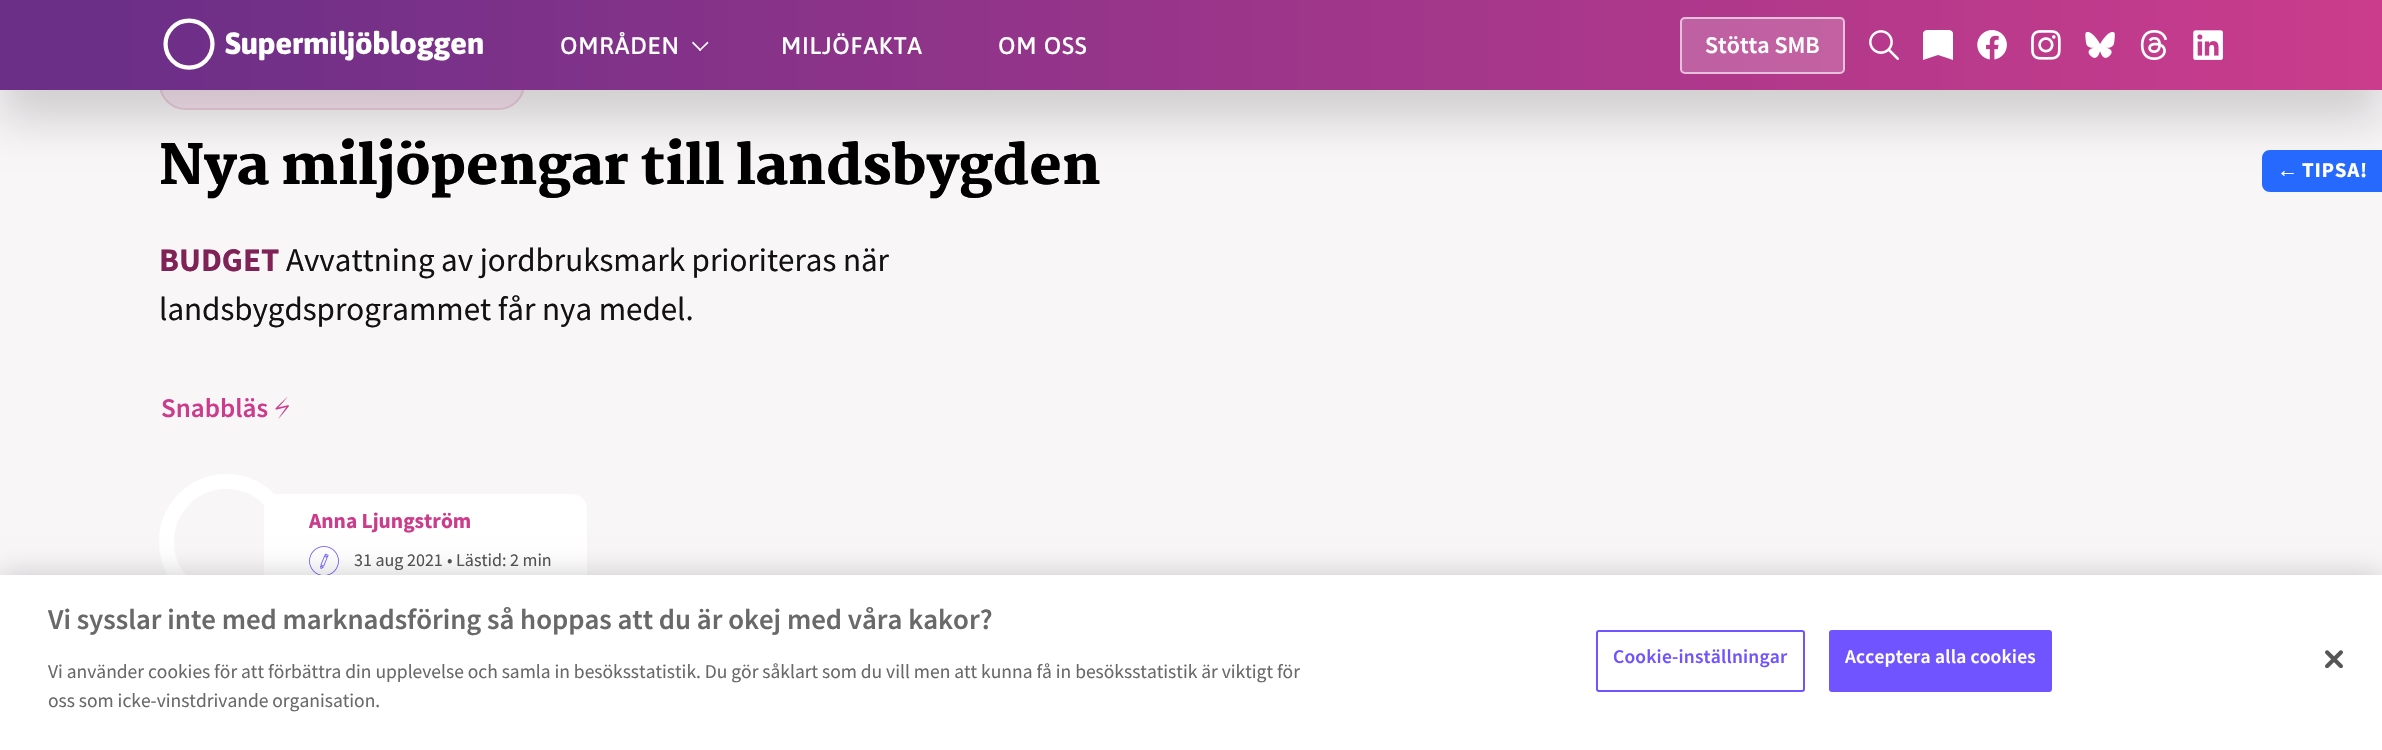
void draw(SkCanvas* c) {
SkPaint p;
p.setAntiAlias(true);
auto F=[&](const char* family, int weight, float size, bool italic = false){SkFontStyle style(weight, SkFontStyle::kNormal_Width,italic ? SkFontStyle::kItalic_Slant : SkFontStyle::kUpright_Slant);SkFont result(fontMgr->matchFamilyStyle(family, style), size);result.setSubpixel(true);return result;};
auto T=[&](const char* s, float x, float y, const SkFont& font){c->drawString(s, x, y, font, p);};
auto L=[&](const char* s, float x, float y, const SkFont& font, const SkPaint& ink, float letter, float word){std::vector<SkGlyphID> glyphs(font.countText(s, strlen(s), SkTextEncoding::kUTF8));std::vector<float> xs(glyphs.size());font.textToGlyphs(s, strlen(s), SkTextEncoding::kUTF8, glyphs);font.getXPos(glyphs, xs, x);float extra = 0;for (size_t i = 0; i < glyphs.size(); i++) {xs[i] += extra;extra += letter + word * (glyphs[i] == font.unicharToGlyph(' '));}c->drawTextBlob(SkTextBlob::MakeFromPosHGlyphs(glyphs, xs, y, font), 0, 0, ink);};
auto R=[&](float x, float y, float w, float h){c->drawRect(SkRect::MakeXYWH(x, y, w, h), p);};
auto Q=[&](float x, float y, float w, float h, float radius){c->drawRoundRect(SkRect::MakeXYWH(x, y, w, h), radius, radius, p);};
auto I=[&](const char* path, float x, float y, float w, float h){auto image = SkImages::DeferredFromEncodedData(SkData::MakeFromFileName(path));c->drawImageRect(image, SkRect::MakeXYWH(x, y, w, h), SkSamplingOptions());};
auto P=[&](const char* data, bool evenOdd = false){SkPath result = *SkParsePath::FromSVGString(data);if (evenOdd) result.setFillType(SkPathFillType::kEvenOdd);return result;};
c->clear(0xfff9f6f8);
p.setColor(0xfff8e5f0);
c->drawRoundRect(SkRect::MakeXYWH(160,58,364,51),25.5,25.5,p);
p.setStroke(true);
p.setStrokeWidth(2);
p.setColor(0xffedcee0);
c->drawRoundRect(SkRect::MakeXYWH(160,58,364,51),25.5,25.5,p);
p.setStroke(false);
p.setColor(0x29000000);
p.setMaskFilter(SkMaskFilter::MakeBlur(kNormal_SkBlurStyle, 22.5));
c->drawRect(SkRect::MakeXYWH(0,30,2382,90),p);
p.setMaskFilter(nullptr);
{
const SkColor colors[] = {0xff6c2f88,0xffcb3c8c};
const float stops[] = {.05,1};
const SkPoint ends[] = {{0,45}, {2382,45}};
p.setShader(SkGradientShader::MakeLinear(ends, colors, stops, 2, SkTileMode::kClamp));
p.setAlpha(255);
}
R(0,0,2382,90);
I("1.png",163,18,320,52);
auto f1 = F("Asap",500,24);
p.setShader(nullptr);
p.setColor(0xffffffff);
L("OMRÅDEN",560,54,f1,p,.75,0);
c->drawPath(P("M708.5 43l-8.5 8l-1-1l8.5-8.5z"),p);
c->drawPath(P("M701.5 50l-1.5 1l-8-8l1-1.5z"),p);
L("MILJÖFAKTA",781,54,f1,p,.75,0);
L("OM OSS",998,54,f1,p,.75,0);
p.setColor(0x33ffffff);
Q(1680,17,165,57,5);
p.setStroke(true);
p.setColor(0x99ffffff);
c->drawRoundRect(SkRect::MakeXYWH(1681,18,163,55),4,4,p);
auto f2 = F("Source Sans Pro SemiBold",600,24);
p.setStroke(false);
p.setColor(0xffffffff);
T("Stötta SMB",1705,53,f2);
I("2.png",1869,30,30,30);
I("3.png",1923,30,30,30);
I("4.png",1977,30,30,30);
I("5.png",2031,30,30,30);
I("6.png",2085,32,30,26);
I("7.png",2140,30,28,30);
I("8.png",2193,30,30,30);
auto f3 = F("Martel",900,54);
p.setColor(0xff000000);
T("Nya miljöpengar till landsbygden",159,184,f3);
auto f4 = F("Source Sans Pro",700,33);
p.setColor(0xff7f2256);
T("BUDGET",159,271,f4);
auto f5 = F("Source Sans Pro",400,33);
p.setColor(0xff121212);
T("Avvattning av jordbruksmark prioriteras när",286,271,f5);
T("landsbygdsprogrammet får nya medel.",159,320,f5);
auto f6 = F("Source Sans Pro SemiBold",600,27);
p.setColor(0xffcb3c8c);
T("Snabbläs",161,417,f6);
I("9.png",275,396,14,23);
p.setColor(0xffffffff);
c->drawPath(P("M264 494h308c8.5 0 15 6.5 15 15v67c0 8.5-6.5 15-15 15h-308z"),p);
p.setStroke(true);
p.setStrokeWidth(15);
c->drawCircle(226.5,541.5,60,p);
auto f7 = F("Source Sans Pro",700,21.5);
p.setStroke(false);
p.setColor(0xffcb3c8c);
T("Anna Ljungström",309,528,f7);
I("10.png",309,546,30,29);
auto f8 = F("Source Sans Pro",400,18);
p.setColor(0xff555555);
T("31 aug 2021",354,566,f8);
T("• Lästid: 2 min",447,566,f8);
p.setColor(0xff2669ff);
c->drawPath(P("M2270 150h112v42h-112c-4.5 0-8-3.5-8-8v-26c0-4.5 3.5-8 8-8z"),p);
auto f9 = F("Liberation Sans",700,21);
p.setColor(0xffffffff);
L("←",2277,177,f9,p,.75,0);
auto f10 = F("Source Sans Pro",700,21);
L("TIPSA!",2302,177,f10,p,.75,0);
p.setColor(0x33000000);
p.setMaskFilter(SkMaskFilter::MakeBlur(kNormal_SkBlurStyle, 13.5));
c->drawRect(SkRect::MakeXYWH(0,575,2382,175),p);
p.setMaskFilter(nullptr);
p.setColor(0xffffffff);
R(0,575,2382,175);
auto f11 = F("Source Sans Pro SemiBold",600,28.8);
p.setColor(0xff696969);
T("Vi sysslar inte med marknadsföring så hoppas att du är okej med våra kakor?",48,629,f11);
auto f12 = F("Source Sans Pro",400,19.5);
T("Vi använder cookies för att förbättra din upplevelse och samla in besöksstatistik. Du gör såklart som du vill men att kunna få in besöksstatistik är viktigt för",48,678,f12);
T("oss som icke-vinstdrivande organisation.",48,707,f12);
p.setStroke(true);
p.setStrokeWidth(2);
p.setColor(0xff7054ff);
c->drawRoundRect(SkRect::MakeXYWH(1597,631,207,60),2,2,p);
auto f13 = F("Source Sans Pro SemiBold",600,19.5);
p.setStroke(false);
L("Cookie-inställningar",1613,663,f13,p,.2,0);
c->drawRoundRect(SkRect::MakeXYWH(1830,631,221,60),2,2,p);
p.setStroke(true);
c->drawRoundRect(SkRect::MakeXYWH(1830,631,221,60),2,2,p);
p.setStroke(false);
p.setColor(0xffffffff);
L("Acceptera alla cookies",1845,663,f13,p,.2,0);
I("11.png",2325,650,18,18);
}
